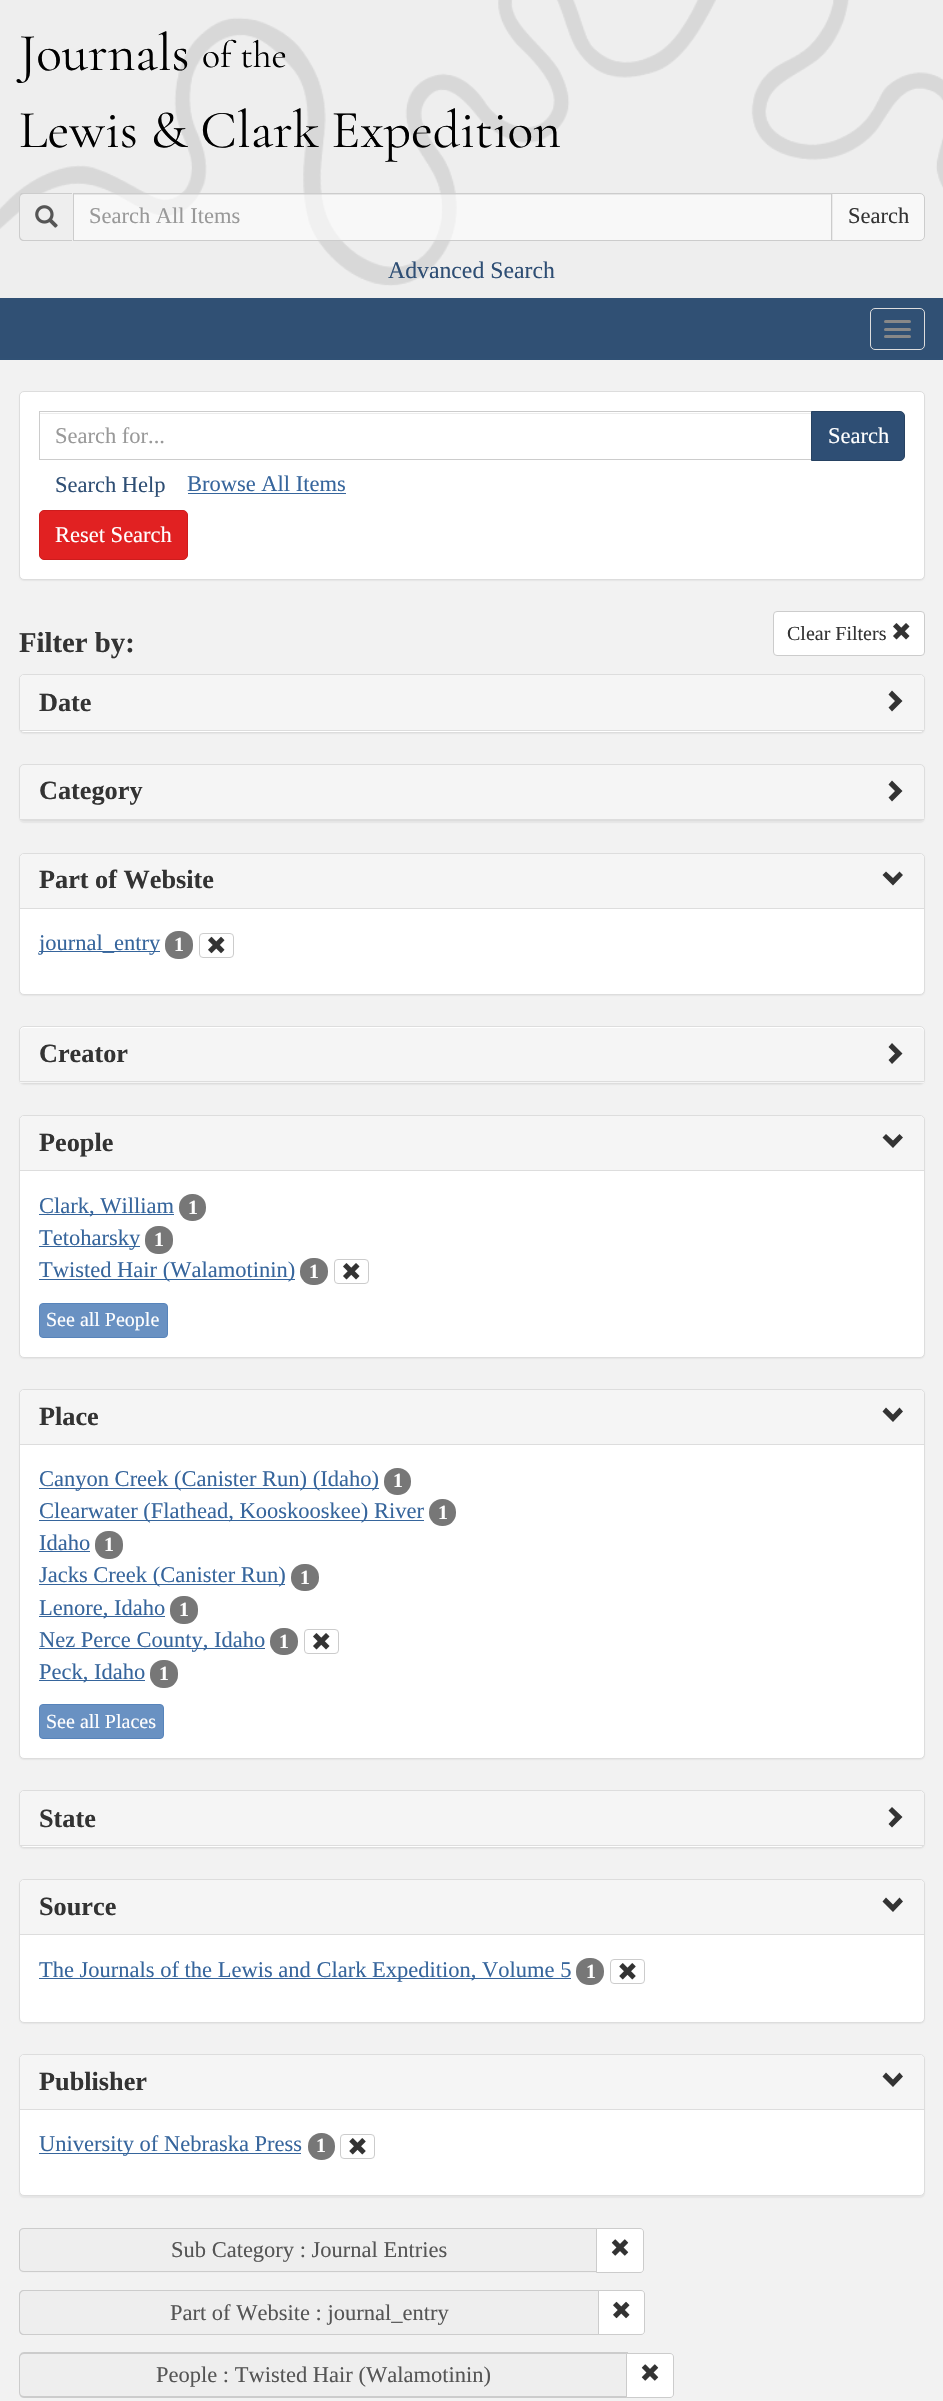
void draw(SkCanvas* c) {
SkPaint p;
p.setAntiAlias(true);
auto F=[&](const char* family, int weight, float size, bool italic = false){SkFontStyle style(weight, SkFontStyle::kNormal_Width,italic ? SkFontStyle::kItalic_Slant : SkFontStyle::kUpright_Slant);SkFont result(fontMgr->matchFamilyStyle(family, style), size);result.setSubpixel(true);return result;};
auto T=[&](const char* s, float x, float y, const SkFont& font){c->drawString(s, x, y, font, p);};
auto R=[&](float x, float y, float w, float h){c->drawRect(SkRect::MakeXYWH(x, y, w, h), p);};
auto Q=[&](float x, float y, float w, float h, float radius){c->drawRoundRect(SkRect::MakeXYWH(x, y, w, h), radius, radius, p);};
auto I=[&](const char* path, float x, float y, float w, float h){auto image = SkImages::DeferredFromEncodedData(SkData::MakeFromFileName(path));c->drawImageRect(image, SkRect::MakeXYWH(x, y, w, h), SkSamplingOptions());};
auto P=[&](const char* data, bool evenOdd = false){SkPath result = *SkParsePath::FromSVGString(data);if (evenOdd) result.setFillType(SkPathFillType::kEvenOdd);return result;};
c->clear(0xffeeeeee);
p.setColor(0xff305074);
R(0,298,943,60);
I("1.png",0,0,943,286);
auto f1 = F("Cormorant Garamond",300,53.5);
p.setColor(0xff000000);
T("Journals",19,70,f1);
auto f2 = F("Cormorant Garamond",300,37.5);
T("of the",202,67,f2);
T("Lewis & Clark Expedition",19,147,f1);
p.setColor(0xffeeeeee);
c->drawPath(P("M24 193h49v48h-49c-3 0-5-2-5-5v-38c0-3 2-5 5-5z"),p);
c->save();
c->clipRect(SkRect::MakeXYWH(19,193,906,105));
p.setColor(0xffcccccc);
c->drawPath(P("M24 192h48v49h-48c-3 0-5-2-5-5v-38c0-3 2-6 5-6zm0 2h48v46h-48c-2 0-4-2-4-4v-38c0-3 2-4 4-4z",true),p);
c->restore();
I("2.png",35,205,23,23);
p.setColor(0x99ffffff);
R(74,194,757,46);
p.setColor(0x12000000);
R(74,194,757,1);
p.setStroke(true);
p.setStrokeWidth(1);
p.setColor(0xffcccccc);
c->drawRect(SkRect::MakeXYWH(73.5,193.5,759,47),p);
auto f3 = F("Liberation Serif",400,22.5);
p.setStroke(false);
p.setColor(0xff999999);
T("Search All Items",89,223,f3);
p.setColor(0x99ffffff);
c->drawPath(P("M831.5 193.5h88.5c2.5 0 4.5 2 4.5 4.5v38c0 2.5-2 4.5-4.5 4.5h-88.5z"),p);
p.setStroke(true);
p.setColor(0xffcccccc);
c->drawPath(P("M831.5 193.5h88.5c2.5 0 4.5 2 4.5 4.5v38c0 2.5-2 4.5-4.5 4.5h-88.5z"),p);
p.setStroke(false);
p.setColor(0xff333333);
T("Search",848,223,f3);
auto f4 = F("Liberation Serif",400,23.75);
p.setColor(0xff2e4e74);
T("Advanced Search",388,278,f4);
p.setStroke(true);
p.setColor(0xffdddddd);
c->drawRoundRect(SkRect::MakeXYWH(870.5,308.5,54,41),4.5,4.5,p);
p.setStroke(false);
p.setColor(0xff888888);
Q(884,320,27,3,1.5);
Q(884,328,27,3,1.5);
Q(884,335,27,3,1.5);
p.setColor(0xfff2f2f2);
R(0,360,943,2041);
p.setColor(0xff305175);
R(0,358,943,2);
p.setColor(0x0d000000);
p.setMaskFilter(SkMaskFilter::MakeBlur(kNormal_SkBlurStyle, .5));
c->drawRoundRect(SkRect::MakeXYWH(19,393,906,188),5,5,p);
p.setMaskFilter(nullptr);
p.setColor(0xffffffff);
c->drawRoundRect(SkRect::MakeXYWH(19.5,391.5,905,188),4.5,4.5,p);
p.setStroke(true);
p.setColor(0xffdddddd);
c->drawRoundRect(SkRect::MakeXYWH(19.5,391.5,905,188),4.5,4.5,p);
p.setStroke(false);
p.setColor(0xffececec);
R(40,413,771,1);
p.setStroke(true);
p.setColor(0xffcccccc);
c->drawRect(SkRect::MakeXYWH(39.5,411.5,773,48),p);
p.setStroke(false);
p.setColor(0xff999999);
T("Search for...",55,443,f3);
p.setColor(0xff2e4e74);
c->drawPath(P("M811.5 411.5h88.5c2.5 0 4.5 2 4.5 4.5v40c0 2.5-2 4.5-4.5 4.5h-88.5z"),p);
p.setStroke(true);
p.setColor(0xff274262);
c->drawPath(P("M811.5 411.5h88.5c2.5 0 4.5 2 4.5 4.5v40c0 2.5-2 4.5-4.5 4.5h-88.5z"),p);
p.setStroke(false);
p.setColor(0xffffffff);
T("Search",828,443,f3);
p.setColor(0xff2e4e74);
T("Search Help",55,492,f3);
p.setColor(0xff36659c);
T("Browse All Items",187,491,f3);
R(188,493,158,1);
p.setColor(0xffe12122);
c->drawRoundRect(SkRect::MakeXYWH(39.5,510.5,148,49),4.5,4.5,p);
p.setStroke(true);
p.setColor(0xffcd1c1d);
c->drawRoundRect(SkRect::MakeXYWH(39.5,510.5,148,49),4.5,4.5,p);
p.setStroke(false);
p.setColor(0xffffffff);
T("Reset Search",55,542,f3);
auto f5 = F("Liberation Serif",700,28.75);
p.setColor(0xff333333);
T("Filter by:",19,652,f5);
p.setColor(0xffffffff);
c->drawRoundRect(SkRect::MakeXYWH(773.5,611.5,151,44),3.5,3.5,p);
p.setStroke(true);
p.setColor(0xffcccccc);
c->drawRoundRect(SkRect::MakeXYWH(773.5,611.5,151,44),3.5,3.5,p);
auto f6 = F("Liberation Serif",400,20);
p.setStroke(false);
p.setColor(0xff333333);
T("Clear Filters",787,640,f6);
I("3.png",893,623,17,17);
p.setColor(0x0d000000);
p.setMaskFilter(SkMaskFilter::MakeBlur(kNormal_SkBlurStyle, .5));
c->drawRoundRect(SkRect::MakeXYWH(19,675,906,59),5,5,p);
p.setMaskFilter(nullptr);
p.setColor(0xffffffff);
c->drawRoundRect(SkRect::MakeXYWH(19.5,674.5,905,58),4.5,4.5,p);
p.setStroke(true);
p.setColor(0xffdddddd);
c->drawRoundRect(SkRect::MakeXYWH(19.5,674.5,905,58),4.5,4.5,p);
p.setStroke(false);
p.setColor(0xfff5f5f5);
c->drawPath(P("M24 675h896c2 0 4 2 4 4v52h-904v-52c0-2 2-4 4-4z"),p);
p.setColor(0xffdddddd);
R(20,730,904,1);
auto f7 = F("Liberation Serif",700,26.25);
p.setColor(0xff333333);
T("Date",39,711,f7);
c->drawPath(P("M902.5 701l-10.5 10.5l-3.5-4l6.5-6.5l-6.5-6.5l3.5-4z"),p);
p.setColor(0x0d000000);
p.setMaskFilter(SkMaskFilter::MakeBlur(kNormal_SkBlurStyle, .5));
c->drawRoundRect(SkRect::MakeXYWH(19,765,906,58),5,5,p);
p.setMaskFilter(nullptr);
p.setStroke(true);
p.setColor(0xffdddddd);
c->drawRoundRect(SkRect::MakeXYWH(19.5,764.5,905,56),4.5,4.5,p);
p.setStroke(false);
p.setColor(0xfff5f5f5);
c->drawPath(P("M24 765h896c2 0 4 2 4 4v51h-904v-51c0-2 2-4 4-4z"),p);
p.setColor(0xffdddddd);
R(20,819,904,1);
p.setColor(0xff333333);
T("Category",39,799,f7);
c->drawPath(P("M902.5 791l-10.5 10.5l-3.5-4l6.5-6.5l-6.5-6.5l3.5-4z"),p);
p.setColor(0x0d000000);
p.setMaskFilter(SkMaskFilter::MakeBlur(kNormal_SkBlurStyle, .5));
c->drawRoundRect(SkRect::MakeXYWH(19,854,906,142),5,5,p);
p.setMaskFilter(nullptr);
p.setColor(0xffffffff);
c->drawRoundRect(SkRect::MakeXYWH(19.5,853.5,905,141),4.5,4.5,p);
p.setStroke(true);
p.setColor(0xffdddddd);
c->drawRoundRect(SkRect::MakeXYWH(19.5,853.5,905,141),4.5,4.5,p);
p.setStroke(false);
p.setColor(0xfff5f5f5);
c->drawPath(P("M24 854h896c2 0 4 2 4 4v51h-904v-51c0-2 2-4 4-4z"),p);
p.setColor(0xffdddddd);
R(20,908,904,1);
p.setColor(0xff333333);
T("Part of Website",39,888,f7);
c->drawPath(P("M903 875l-10 10.5l-10.5-10.5l3.5-3.5l7 6.5l6.5-6.5z"),p);
p.setColor(0xff36659c);
R(39,951,121,1);
T("journal_entry",39,950,f3);
p.setColor(0xff777777);
Q(165,931,28,28,13);
auto f8 = F("Liberation Serif",700,20);
p.setColor(0xffffffff);
T("1",174,951,f8);
p.setStroke(true);
p.setColor(0xffcccccc);
c->drawRoundRect(SkRect::MakeXYWH(199.5,933.5,34,24),3.5,3.5,p);
I("4.png",208,936,17,18);
p.setStroke(false);
p.setColor(0x0d000000);
p.setMaskFilter(SkMaskFilter::MakeBlur(kNormal_SkBlurStyle, .5));
c->drawRoundRect(SkRect::MakeXYWH(19,1028,906,57),5,5,p);
p.setMaskFilter(nullptr);
p.setColor(0xffffffff);
c->drawRoundRect(SkRect::MakeXYWH(19.5,1026.5,905,57),4.5,4.5,p);
p.setStroke(true);
p.setColor(0xffdddddd);
c->drawRoundRect(SkRect::MakeXYWH(19.5,1026.5,905,57),4.5,4.5,p);
p.setStroke(false);
p.setColor(0xfff5f5f5);
c->drawPath(P("M24 1028h896c2 0 4 2 4 4v51h-904v-51c0-2 2-4 4-4z"),p);
p.setColor(0xffdddddd);
R(20,1081,904,1);
p.setColor(0xff333333);
T("Creator",39,1062,f7);
c->drawPath(P("M902.5 1053.5l-10.5 10.5l-3.5-4l6.5-6.5l-6.5-6.5l3.5-4z"),p);
p.setColor(0x0d000000);
p.setMaskFilter(SkMaskFilter::MakeBlur(kNormal_SkBlurStyle, .5));
c->drawRoundRect(SkRect::MakeXYWH(19,1116,906,243),5,5,p);
p.setMaskFilter(nullptr);
p.setColor(0xffffffff);
c->drawRoundRect(SkRect::MakeXYWH(19.5,1115.5,905,242),4.5,4.5,p);
p.setStroke(true);
p.setColor(0xffdddddd);
c->drawRoundRect(SkRect::MakeXYWH(19.5,1115.5,905,242),4.5,4.5,p);
p.setStroke(false);
p.setColor(0xfff5f5f5);
c->drawPath(P("M24 1116h896c2 0 4 2 4 4v51h-904v-51c0-2 2-4 4-4z"),p);
p.setColor(0xffdddddd);
R(20,1170,904,1);
p.setColor(0xff333333);
T("People",39,1151,f7);
c->drawPath(P("M903 1137.5l-10 10.5l-10.5-10.5l3.5-3.5l7 6.5l6.5-6.5z"),p);
p.setColor(0xff36659c);
R(39,1214,135,1);
T("Clark, William",39,1213,f3);
p.setColor(0xff777777);
Q(179,1194,27,27,13);
p.setColor(0xffffffff);
T("1",188,1214,f8);
p.setColor(0xff36659c);
R(39,1246,101,1);
T("Tetoharsky",39,1245,f3);
p.setColor(0xff777777);
Q(145,1226,28,28,13);
p.setColor(0xffffffff);
T("1",154,1246,f8);
p.setColor(0xff36659c);
R(39,1279,256,1);
T("Twisted Hair (Walamotinin)",39,1277,f3);
p.setColor(0xff777777);
Q(300,1258,28,27,13);
p.setColor(0xffffffff);
T("1",309,1278,f8);
p.setStroke(true);
p.setColor(0xffcccccc);
c->drawRoundRect(SkRect::MakeXYWH(334.5,1259.5,34,24),3.5,3.5,p);
I("3.png",343,1263,17,17);
p.setStroke(false);
p.setColor(0xff6991c2);
c->drawRoundRect(SkRect::MakeXYWH(39.5,1303.5,128,34),3.5,3.5,p);
p.setStroke(true);
p.setColor(0xff5784bb);
c->drawRoundRect(SkRect::MakeXYWH(39.5,1303.5,128,34),3.5,3.5,p);
p.setStroke(false);
p.setColor(0xffffffff);
T("See all People",46,1326,f6);
p.setColor(0x0d000000);
p.setMaskFilter(SkMaskFilter::MakeBlur(kNormal_SkBlurStyle, .5));
c->drawRoundRect(SkRect::MakeXYWH(19,1390,906,370),5,5,p);
p.setMaskFilter(nullptr);
p.setColor(0xffffffff);
c->drawRoundRect(SkRect::MakeXYWH(19.5,1389.5,905,369),4.5,4.5,p);
p.setStroke(true);
p.setColor(0xffdddddd);
c->drawRoundRect(SkRect::MakeXYWH(19.5,1389.5,905,369),4.5,4.5,p);
p.setStroke(false);
p.setColor(0xfff5f5f5);
c->drawPath(P("M24 1390h896c2 0 4 2 4 4v51h-904v-51c0-2 2-4 4-4z"),p);
p.setColor(0xffdddddd);
R(20,1444,904,1);
p.setColor(0xff333333);
T("Place",39,1425,f7);
c->drawPath(P("M903 1411.5l-10 10.5l-10.5-10.5l3.5-4l7 7l6.5-7z"),p);
p.setColor(0xff36659c);
R(39,1488,340,1);
T("Canyon Creek (Canister Run) (Idaho)",39,1486,f3);
p.setColor(0xff777777);
Q(384,1468,27,27,13);
p.setColor(0xffffffff);
T("1",393,1487,f8);
p.setColor(0xff36659c);
R(39,1520,385,1);
T("Clearwater (Flathead, Kooskooskee) River",39,1518,f3);
p.setColor(0xff777777);
Q(429,1499,27,27,13);
p.setColor(0xffffffff);
T("1",438,1519,f8);
p.setColor(0xff36659c);
T("Idaho",39,1550,f3);
R(39,1551,51,1);
p.setColor(0xff777777);
Q(95,1531,28,28,13);
p.setColor(0xffffffff);
T("1",104,1551,f8);
p.setColor(0xff36659c);
R(39,1584,246,1);
T("Jacks Creek (Canister Run)",39,1582,f3);
p.setColor(0xff777777);
Q(291,1564,28,27,13);
p.setColor(0xffffffff);
T("1",300,1584,f8);
p.setColor(0xff36659c);
R(39,1616,126,1);
T("Lenore, Idaho",39,1615,f3);
p.setColor(0xff777777);
Q(170,1596,28,28,13);
p.setColor(0xffffffff);
T("1",179,1616,f8);
p.setColor(0xff36659c);
R(39,1648,226,1);
T("Nez Perce County, Idaho",39,1647,f3);
p.setColor(0xff777777);
Q(270,1628,28,27,13);
p.setColor(0xffffffff);
T("1",279,1648,f8);
p.setStroke(true);
p.setColor(0xffcccccc);
c->drawRoundRect(SkRect::MakeXYWH(304.5,1629.5,34,24),3.5,3.5,p);
I("3.png",313,1633,17,17);
p.setStroke(false);
p.setColor(0xff36659c);
R(39,1680,106,1);
T("Peck, Idaho",39,1679,f3);
p.setColor(0xff777777);
Q(150,1660,28,28,13);
p.setColor(0xffffffff);
T("1",159,1680,f8);
p.setColor(0xff6991c2);
c->drawRoundRect(SkRect::MakeXYWH(39.5,1704.5,124,34),3.5,3.5,p);
p.setStroke(true);
p.setColor(0xff5784bb);
c->drawRoundRect(SkRect::MakeXYWH(39.5,1704.5,124,34),3.5,3.5,p);
p.setStroke(false);
p.setColor(0xffffffff);
T("See all Places",46,1728,f6);
p.setColor(0x0d000000);
p.setMaskFilter(SkMaskFilter::MakeBlur(kNormal_SkBlurStyle, .5));
c->drawRoundRect(SkRect::MakeXYWH(19,1791,906,58),5,5,p);
p.setMaskFilter(nullptr);
p.setColor(0xffffffff);
c->drawRoundRect(SkRect::MakeXYWH(19.5,1790.5,905,57),4.5,4.5,p);
p.setStroke(true);
p.setColor(0xffdddddd);
c->drawRoundRect(SkRect::MakeXYWH(19.5,1790.5,905,57),4.5,4.5,p);
p.setStroke(false);
p.setColor(0xfff5f5f5);
c->drawPath(P("M24 1791h896c2 0 4 2 4 4v51h-904v-51c0-2 2-4 4-4z"),p);
p.setColor(0xffdddddd);
R(20,1845,904,1);
p.setColor(0xff333333);
T("State",39,1827,f7);
c->drawPath(P("M902.5 1817l-10.5 10.5l-3.5-3.5l6.5-7l-6.5-6.5l3.5-3.5z"),p);
p.setColor(0x0d000000);
p.setMaskFilter(SkMaskFilter::MakeBlur(kNormal_SkBlurStyle, .5));
c->drawRoundRect(SkRect::MakeXYWH(19,1880,906,144),5,5,p);
p.setMaskFilter(nullptr);
p.setColor(0xffffffff);
c->drawRoundRect(SkRect::MakeXYWH(19.5,1879.5,905,143),4.5,4.5,p);
p.setStroke(true);
p.setColor(0xffdddddd);
c->drawRoundRect(SkRect::MakeXYWH(19.5,1879.5,905,143),4.5,4.5,p);
p.setStroke(false);
p.setColor(0xfff5f5f5);
c->drawPath(P("M24 1880h896c2 0 4 2 4 4v51h-904v-51c0-2 2-4 4-4z"),p);
p.setColor(0xffdddddd);
R(20,1934,904,1);
p.setColor(0xff333333);
T("Source",39,1915,f7);
c->drawPath(P("M903 1901.5l-10 10.5l-10.5-10.5l3.5-4l7 7l6.5-7z"),p);
p.setColor(0xff36659c);
R(39,1978,532,1);
T("The Journals of the Lewis and Clark Expedition, Volume 5",39,1977,f3);
p.setColor(0xff777777);
Q(576,1958,28,27,13);
p.setColor(0xffffffff);
T("1",586,1978,f8);
p.setStroke(true);
p.setColor(0xffcccccc);
c->drawRoundRect(SkRect::MakeXYWH(610.5,1959.5,34,24),3.5,3.5,p);
I("5.png",619,1963,17,17);
p.setStroke(false);
p.setColor(0x0d000000);
p.setMaskFilter(SkMaskFilter::MakeBlur(kNormal_SkBlurStyle, .5));
c->drawRoundRect(SkRect::MakeXYWH(19,2055,906,143),5,5,p);
p.setMaskFilter(nullptr);
p.setColor(0xffffffff);
c->drawRoundRect(SkRect::MakeXYWH(19.5,2054.5,905,141),4.5,4.5,p);
p.setStroke(true);
p.setColor(0xffdddddd);
c->drawRoundRect(SkRect::MakeXYWH(19.5,2054.5,905,141),4.5,4.5,p);
p.setStroke(false);
p.setColor(0xfff5f5f5);
c->drawPath(P("M24 2055h896c2 0 4 2 4 4v51h-904v-51c0-2 2-4 4-4z"),p);
p.setColor(0xffdddddd);
R(20,2109,904,1);
p.setColor(0xff333333);
T("Publisher",39,2090,f7);
c->drawPath(P("M903 2076.5l-10 10.5l-10.5-10.5l3.5-4l7 7l6.5-7z"),p);
p.setColor(0xff36659c);
R(39,2153,262,1);
T("University of Nebraska Press",39,2151,f3);
p.setColor(0xff777777);
Q(308,2133,27,27,13);
p.setColor(0xffffffff);
T("1",316,2152,f8);
p.setStroke(true);
p.setColor(0xffcccccc);
c->drawRoundRect(SkRect::MakeXYWH(340.5,2134.5,34,24),3.5,3.5,p);
I("5.png",349,2138,17,17);
p.setStroke(false);
p.setColor(0xffeeeeee);
c->drawPath(P("M24 2228h574v45h-574c-3 0-5-2-5-5v-35c0-3 2-5 5-5z"),p);
p.setColor(0xffcccccc);
c->drawPath(P("M24 2228h574v44h-574c-3 0-5-2-5-4v-36c0-2 2-4 5-4zm0 1h574v42h-574c-2 0-4-1-4-3v-36c0-2 2-3 4-3z",true),p);
p.setColor(0xff555555);
T("Sub Category : Journal Entries",171,2257,f3);
p.setColor(0xffffffff);
c->drawPath(P("M596.5 2228.5h43.5c2 0 3.5 1.5 3.5 3.5v37c0 2-1.5 3.5-3.5 3.5h-43.5z"),p);
p.setStroke(true);
p.setColor(0xffcccccc);
c->drawPath(P("M596.5 2228.5h43.5c2 0 3.5 1.5 3.5 3.5v37c0 2-1.5 3.5-3.5 3.5h-43.5z"),p);
I("6.png",611,2239,18,17);
p.setStroke(false);
p.setColor(0xffeeeeee);
c->drawPath(P("M24 2290h575v45h-575c-3 0-5-2-5-5v-35c0-3 2-5 5-5z"),p);
p.setColor(0xffcccccc);
c->drawPath(P("M24 2290h575v45h-575c-3 0-5-2-5-5v-35c0-3 2-5 5-5zm0 1h575v43h-575c-2 0-4-2-4-4v-35c0-2 2-4 4-4z",true),p);
p.setColor(0xff555555);
T("Part of Website : journal_entry",170,2320,f3);
p.setColor(0xffffffff);
c->drawPath(P("M598.5 2290.5h42.5c2 0 3.5 1.5 3.5 3.5v37c0 2-1.5 3.5-3.5 3.5h-42.5z"),p);
p.setStroke(true);
p.setColor(0xffcccccc);
c->drawPath(P("M598.5 2290.5h42.5c2 0 3.5 1.5 3.5 3.5v37c0 2-1.5 3.5-3.5 3.5h-42.5z"),p);
I("4.png",613,2301,17,18);
p.setStroke(false);
p.setColor(0xffeeeeee);
c->drawPath(P("M24 2353h604v45h-604c-3 0-5-2-5-5v-35c0-3 2-5 5-5z"),p);
p.setColor(0xffcccccc);
c->drawPath(P("M24 2352h604v46h-604c-3 0-5-3-5-6v-34c0-3 2-6 5-6zm0 2h604v42h-604c-2 0-4-1-4-4v-34c0-3 2-4 4-4z",true),p);
p.setColor(0xff555555);
T("People : Twisted Hair (Walamotinin)",156,2382,f3);
p.setColor(0xffffffff);
c->drawPath(P("M626.5 2353.5h43.5c2 0 3.5 1.5 3.5 3.5v37c0 2-1.5 3.5-3.5 3.5h-43.5z"),p);
p.setStroke(true);
p.setColor(0xffcccccc);
c->drawPath(P("M626.5 2353.5h43.5c2 0 3.5 1.5 3.5 3.5v37c0 2-1.5 3.5-3.5 3.5h-43.5z"),p);
I("6.png",641,2364,18,17);
}
